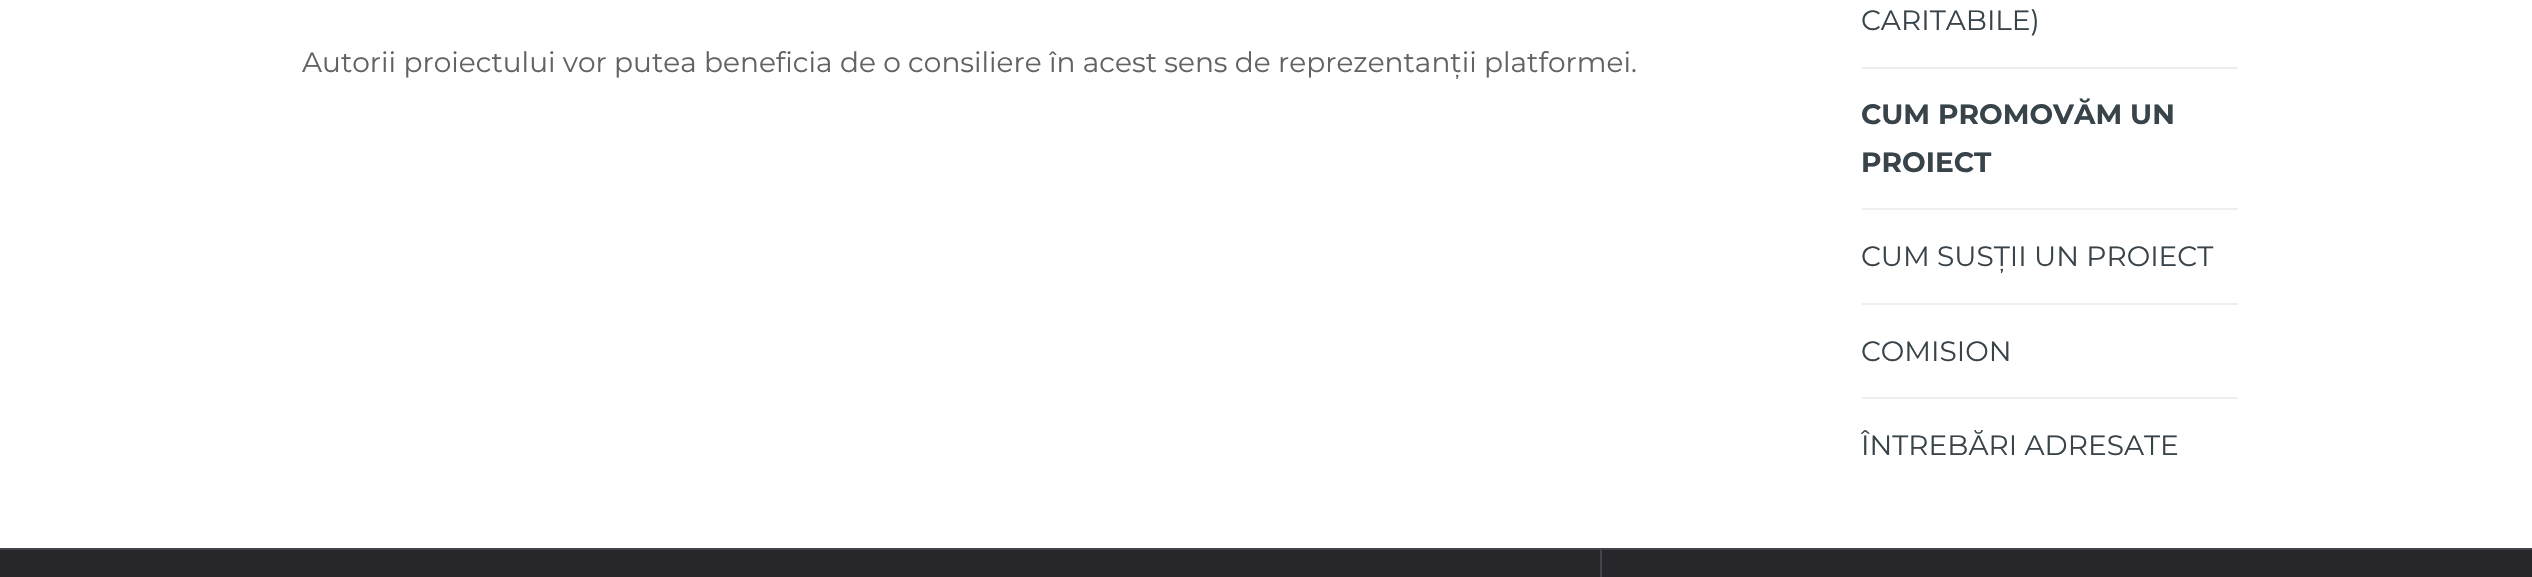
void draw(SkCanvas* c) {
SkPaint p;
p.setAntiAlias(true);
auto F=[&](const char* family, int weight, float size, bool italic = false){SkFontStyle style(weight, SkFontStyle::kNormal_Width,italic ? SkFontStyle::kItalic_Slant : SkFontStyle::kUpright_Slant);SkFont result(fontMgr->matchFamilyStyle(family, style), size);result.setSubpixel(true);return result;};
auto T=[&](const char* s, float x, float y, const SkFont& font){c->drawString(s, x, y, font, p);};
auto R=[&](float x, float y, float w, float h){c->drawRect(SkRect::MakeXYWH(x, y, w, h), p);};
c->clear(0xffffffff);
auto f1 = F("Montserrat",400,28);
p.setColor(0xff626262);
T("Autorii proiectului vor putea beneficia de o consiliere în acest sens de reprezentanții platformei.",302,72,f1);
p.setColor(0xffeeeeee);
R(1862,67,376,2);
p.setColor(0xff38434a);
T("CARITABILE)",1861,30,f1);
p.setColor(0xffeeeeee);
R(1862,208,376,2);
auto f2 = F("Montserrat",700,28);
p.setColor(0xff38434a);
T("CUM PROMOVĂM UN",1861,124,f2);
T("PROIECT",1861,172,f2);
p.setColor(0xffeeeeee);
R(1862,303,376,2);
p.setColor(0xff38434a);
T("CUM SUSȚII UN PROIECT",1861,266,f1);
p.setColor(0xffeeeeee);
R(1862,397,376,2);
p.setColor(0xff38434a);
T("COMISION",1861,361,f1);
T("ÎNTREBĂRI ADRESATE",1861,455,f1);
p.setColor(0xff26262b);
R(0,550,2532,27);
p.setColor(0xff43434d);
R(0,548,2532,2);
R(1600,550,2,27);
}
